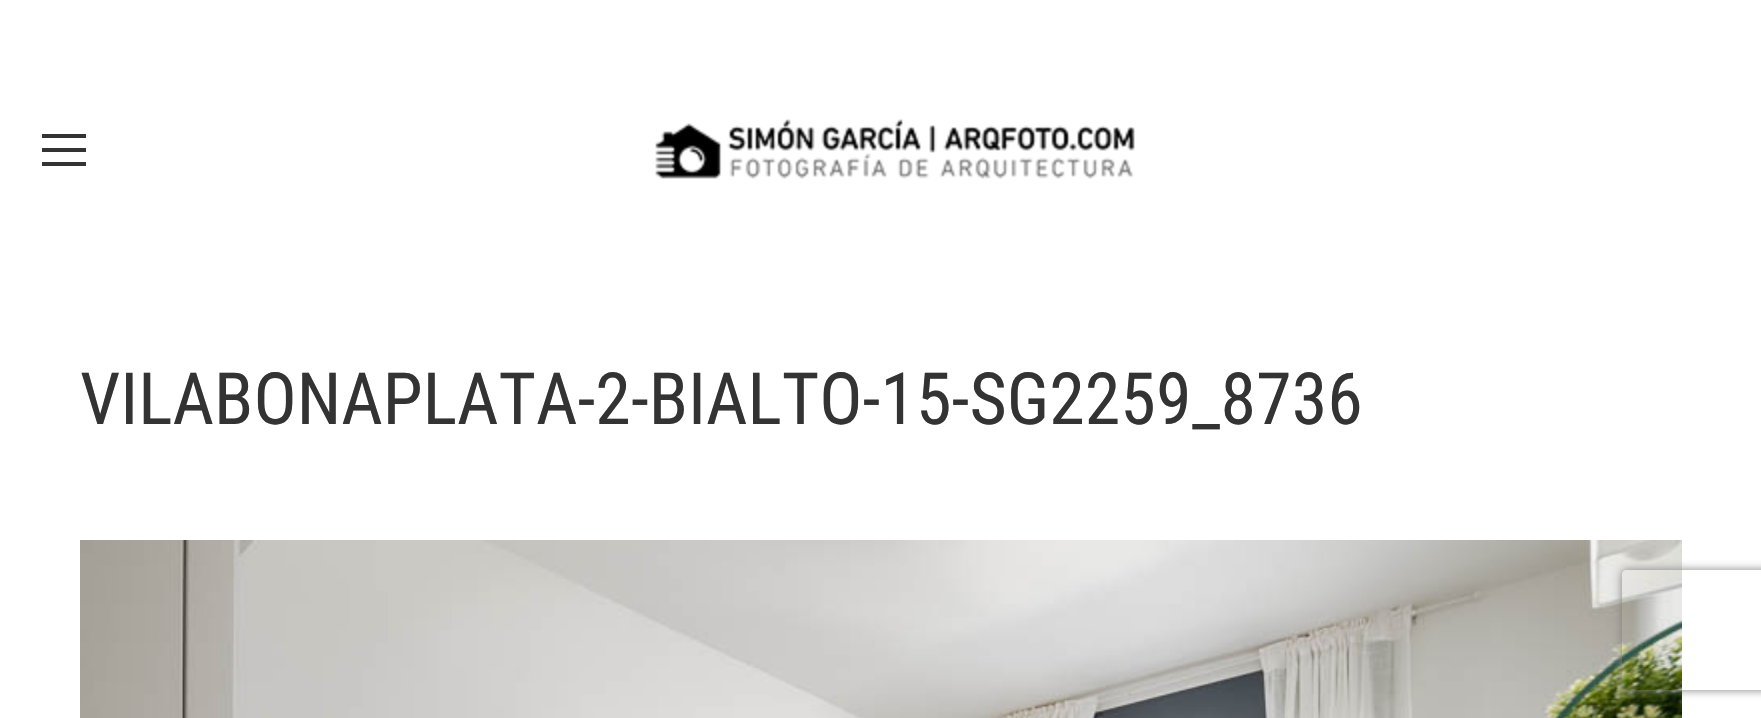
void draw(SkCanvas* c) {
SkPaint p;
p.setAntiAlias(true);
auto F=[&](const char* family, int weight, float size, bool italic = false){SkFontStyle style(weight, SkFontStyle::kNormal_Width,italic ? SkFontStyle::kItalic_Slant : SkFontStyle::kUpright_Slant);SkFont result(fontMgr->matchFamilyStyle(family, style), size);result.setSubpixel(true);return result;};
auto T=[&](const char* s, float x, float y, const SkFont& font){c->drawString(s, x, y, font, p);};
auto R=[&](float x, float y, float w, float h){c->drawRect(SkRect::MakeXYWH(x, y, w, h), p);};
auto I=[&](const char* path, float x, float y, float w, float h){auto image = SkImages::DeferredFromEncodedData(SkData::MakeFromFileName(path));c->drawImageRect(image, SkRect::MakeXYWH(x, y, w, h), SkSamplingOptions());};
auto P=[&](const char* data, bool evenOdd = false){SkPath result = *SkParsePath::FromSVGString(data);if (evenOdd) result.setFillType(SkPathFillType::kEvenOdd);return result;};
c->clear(0xffffffff);
p.setColor(0xff333333);
R(42,134,44,4);
R(42,148,44,4);
R(42,162,44,4);
I("1.png",655,119,480,60);
auto f1 = F("Roboto Condensed",400,72);
T("VILABONAPLATA-2-BIALTO-15-SG2259_8736",80,424,f1);
I("2.png",80,540,1602,178);
c->save();
c->clipPath(P("M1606 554h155v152h-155zm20 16h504c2 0 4 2 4 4v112c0 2-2 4-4 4h-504c-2 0-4-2-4-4v-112c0-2 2-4 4-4z",true),true);
p.setColor(0xff808080);
p.setMaskFilter(SkMaskFilter::MakeBlur(kNormal_SkBlurStyle, 5));
c->drawRoundRect(SkRect::MakeXYWH(1622,570,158,120),4,4,p);
p.setMaskFilter(nullptr);
c->restore();
}
